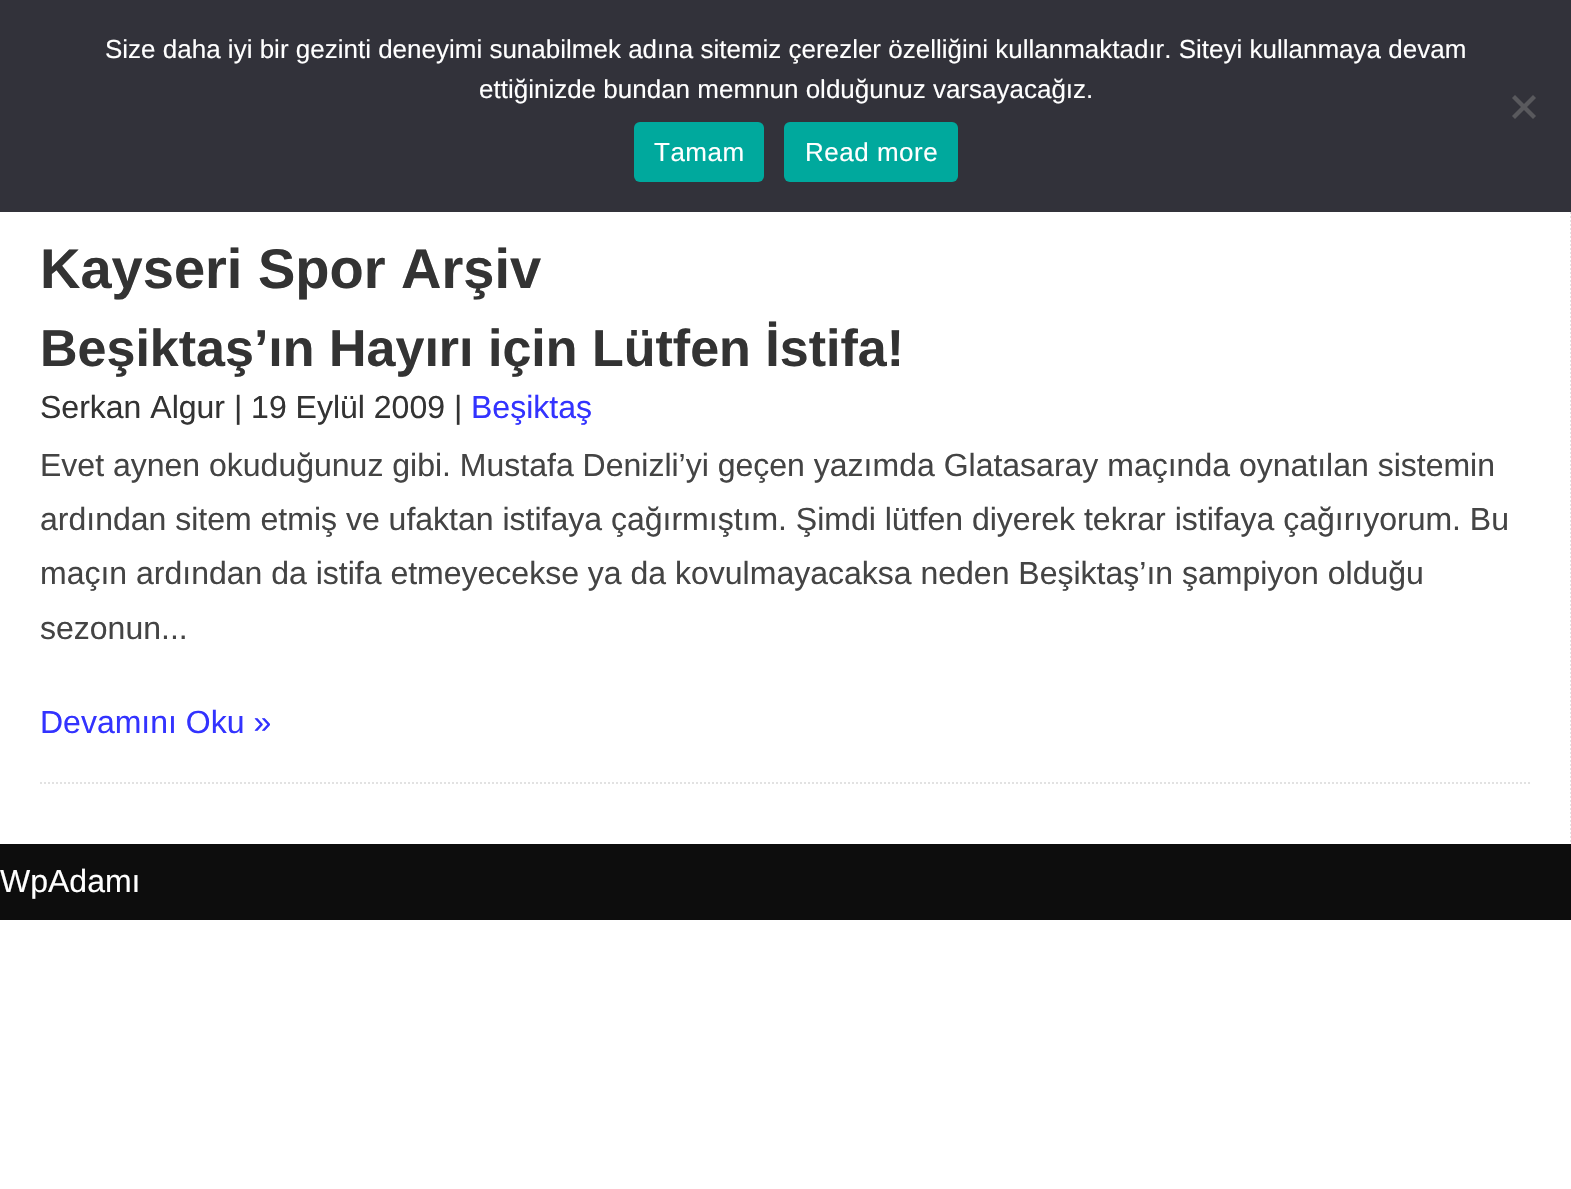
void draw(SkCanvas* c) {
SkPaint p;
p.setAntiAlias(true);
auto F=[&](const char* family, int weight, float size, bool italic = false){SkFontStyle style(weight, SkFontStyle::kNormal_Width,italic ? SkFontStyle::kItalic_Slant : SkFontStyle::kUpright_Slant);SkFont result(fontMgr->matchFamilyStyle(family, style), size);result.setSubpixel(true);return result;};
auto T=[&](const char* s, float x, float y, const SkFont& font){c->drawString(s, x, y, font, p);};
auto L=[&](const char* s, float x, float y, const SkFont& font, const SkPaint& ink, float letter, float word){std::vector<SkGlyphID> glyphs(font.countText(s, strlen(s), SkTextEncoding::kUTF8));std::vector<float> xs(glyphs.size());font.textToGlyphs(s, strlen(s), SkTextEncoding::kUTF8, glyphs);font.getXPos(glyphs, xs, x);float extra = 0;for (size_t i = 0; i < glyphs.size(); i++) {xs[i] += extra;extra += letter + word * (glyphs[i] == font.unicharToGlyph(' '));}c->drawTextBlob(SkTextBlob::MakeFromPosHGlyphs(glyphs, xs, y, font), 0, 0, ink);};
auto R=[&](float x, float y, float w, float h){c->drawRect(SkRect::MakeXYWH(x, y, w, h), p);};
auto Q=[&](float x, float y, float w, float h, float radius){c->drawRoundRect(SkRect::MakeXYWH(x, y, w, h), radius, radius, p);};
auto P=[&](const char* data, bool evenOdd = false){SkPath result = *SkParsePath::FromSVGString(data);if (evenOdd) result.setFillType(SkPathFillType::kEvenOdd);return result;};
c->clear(0xffffffff);
p.setStroke(true);
p.setStrokeWidth(2);
p.setColor(0xffe2e2e2);
p.setPathEffect(SkDashPathEffect::Make({{2,2}}, 0));
c->drawPath(P("M1571 160v684"),p);
p.setPathEffect(nullptr);
p.setStroke(false);
p.setColor(0xff32323a);
R(0,0,1571,212);
auto f1 = F("Liberation Sans",400,26);
p.setColor(0xffffffff);
T("Size daha iyi bir gezinti deneyimi sunabilmek adına sitemiz çerezler özelliğini kullanmaktadır. Siteyi kullanmaya devam",105,58,f1);
T("ettiğinizde bundan memnun olduğunuz varsayacağız.",479,98,f1);
p.setColor(0xff59595d);
c->drawPath(P("M1533 95l3 3l-21 21l-3-3z"),p);
c->drawPath(P("M1512 98l3-3l21 21l-3 3z"),p);
p.setColor(0xff00a99d);
Q(634,122,130,60,6);
p.setColor(0xffffffff);
L("Tamam",654,161,f1,p,.5,0);
p.setColor(0xff00a99d);
Q(784,122,174,60,6);
p.setColor(0xffffffff);
L("Read more",805,161,f1,p,.5,0);
auto f2 = F("Liberation Sans",700,56);
p.setColor(0xff333333);
T("Kayseri Spor Arşiv",40,288,f2);
p.setStroke(true);
p.setColor(0xffe2e2e2);
p.setPathEffect(SkDashPathEffect::Make({{2,2}}, 0));
c->drawPath(P("M40 783h1490"),p);
p.setPathEffect(nullptr);
auto f3 = F("Liberation Sans",700,52);
p.setStroke(false);
p.setColor(0xff333333);
T("Beşiktaş’ın Hayırı için Lütfen İstifa!",40,366,f3);
auto f4 = F("Liberation Sans",400,32);
T("Serkan Algur | 19 Eylül 2009 |",40,418,f4);
p.setColor(0xff3333ff);
T("Beşiktaş",471,418,f4);
p.setColor(0xff444444);
T("Evet aynen okuduğunuz gibi. Mustafa Denizli’yi geçen yazımda Glatasaray maçında oynatılan sistemin",40,476,f4);
T("ardından sitem etmiş ve ufaktan istifaya çağırmıştım. Şimdi lütfen diyerek tekrar istifaya çağırıyorum. Bu",40,530,f4);
T("maçın ardından da istifa etmeyecekse ya da kovulmayacaksa neden Beşiktaş’ın şampiyon olduğu",40,584,f4);
T("sezonun...",40,639,f4);
p.setColor(0xff3333ff);
T("Devamını Oku »",40,733,f4);
p.setColor(0xff0d0d0d);
R(0,844,1571,76);
p.setColor(0xffffffff);
T("WpAdamı",0,892,f4);
}
